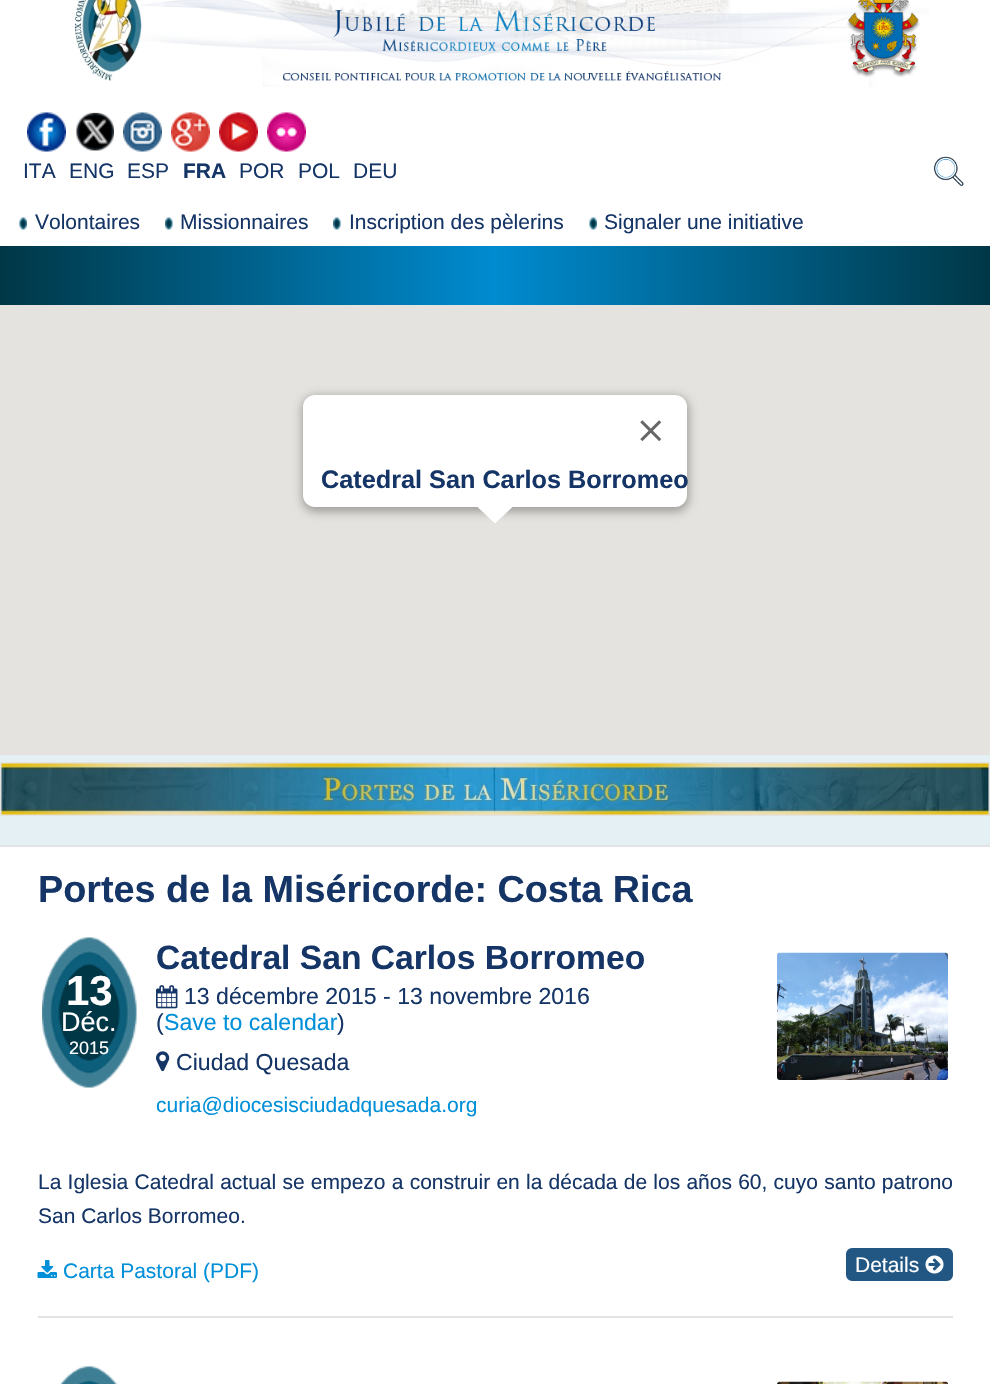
void draw(SkCanvas* c) {
SkPaint p;
p.setAntiAlias(true);
auto F=[&](const char* family, int weight, float size, bool italic = false){SkFontStyle style(weight, SkFontStyle::kNormal_Width,italic ? SkFontStyle::kItalic_Slant : SkFontStyle::kUpright_Slant);SkFont result(fontMgr->matchFamilyStyle(family, style), size);result.setSubpixel(true);return result;};
auto T=[&](const char* s, float x, float y, const SkFont& font){c->drawString(s, x, y, font, p);};
auto L=[&](const char* s, float x, float y, const SkFont& font, const SkPaint& ink, float letter, float word){std::vector<SkGlyphID> glyphs(font.countText(s, strlen(s), SkTextEncoding::kUTF8));std::vector<float> xs(glyphs.size());font.textToGlyphs(s, strlen(s), SkTextEncoding::kUTF8, glyphs);font.getXPos(glyphs, xs, x);float extra = 0;for (size_t i = 0; i < glyphs.size(); i++) {xs[i] += extra;extra += letter + word * (glyphs[i] == font.unicharToGlyph(' '));}c->drawTextBlob(SkTextBlob::MakeFromPosHGlyphs(glyphs, xs, y, font), 0, 0, ink);};
auto R=[&](float x, float y, float w, float h){c->drawRect(SkRect::MakeXYWH(x, y, w, h), p);};
auto Q=[&](float x, float y, float w, float h, float radius){c->drawRoundRect(SkRect::MakeXYWH(x, y, w, h), radius, radius, p);};
auto I=[&](const char* path, float x, float y, float w, float h){auto image = SkImages::DeferredFromEncodedData(SkData::MakeFromFileName(path));c->drawImageRect(image, SkRect::MakeXYWH(x, y, w, h), SkSamplingOptions());};
auto P=[&](const char* data, bool evenOdd = false){SkPath result = *SkParsePath::FromSVGString(data);if (evenOdd) result.setFillType(SkPathFillType::kEvenOdd);return result;};
c->clear(0xffe5f0f5);
p.setColor(0xffffffff);
R(0,0,990,246);
I("1.png",75,0,854,87);
I("2.png",27,112,39,40);
I("3.png",76,112,38,39);
I("4.png",123,112,39,40);
I("5.png",171,112,39,40);
I("6.png",219,112,39,40);
I("7.png",267,112,39,40);
auto f1 = F("Liberation Sans",400,21);
p.setColor(0xff153567);
T("ITA",23,178,f1);
T("ENG",69,178,f1);
T("ESP",127,178,f1);
auto f2 = F("Liberation Sans",700,21);
T("FRA",183,178,f2);
T("POR",239,178,f1);
T("POL",298,178,f1);
T("DEU",353,178,f1);
I("8.png",934,156,30,30);
I("9.png",19,217,8,13);
T("Volontaires",35,229,f1);
I("10.png",165,217,8,13);
T("Missionnaires",180,229,f1);
I("11.png",333,217,8,13);
T("Inscription des pèlerins",349,229,f1);
I("12.png",589,217,8,13);
T("Signaler une initiative",604,229,f1);
{
const SkColor colors[] = {0xff003746,0xff008bd0,0xff003746};
const float stops[] = {0,.5,1};
const SkPoint ends[] = {{0,275}, {990,275}};
p.setShader(SkGradientShader::MakeLinear(ends, colors, stops, 3, SkTileMode::kClamp));
p.setAlpha(255);
}
R(0,246,990,59);
p.setShader(nullptr);
p.setColor(0xffe5e3df);
R(0,305,990,450);
p.setColor(0x4d000000);
p.setMaskFilter(SkMaskFilter::MakeBlur(kNormal_SkBlurStyle, 5));
c->drawRoundRect(SkRect::MakeXYWH(302,396,387,116),14,14,p);
p.setMaskFilter(nullptr);
p.setColor(0xffffffff);
Q(303,395,384,112,12);
I("13.png",640,420,22,22);
auto f3 = F("Liberation Sans",700,25.25);
p.setColor(0xff153567);
T("Catedral San Carlos Borromeo",321,488,f3);
p.setColor(0xffffffff);
c->drawPath(P("M477 506v.5l18 17l18.5-17.5z"),p);
p.setStroke(true);
p.setStrokeWidth(2);
p.setColor(0xffe3e3e3);
c->drawRect(SkRect::MakeXYWH(1,763,988,52),p);
I("14.png",1,763,988,52);
p.setStroke(false);
p.setColor(0xffffffff);
R(0,847,990,537);
p.setColor(0xffe3e3e3);
R(0,845,990,2);
auto f4 = F("Liberation Sans",700,37.75);
p.setColor(0xff153567);
T("Portes de la Miséricorde: Costa Rica",38,902,f4);
I("15.png",42,937,95,151);
auto f5 = F("Liberation Sans",700,42);
p.setColor(0xffffffff);
T("13",66,1005,f5);
auto f6 = F("Liberation Sans",400,27);
T("Déc.",61,1031,f6);
auto f7 = F("Liberation Sans",400,18);
T("2015",69,1054,f7);
auto f8 = F("Liberation Sans",700,33.6);
p.setColor(0xff153567);
T("Catedral San Carlos Borromeo",156,969,f8);
I("16.png",777,952,171,128);
I("17.png",156,985,22,24);
auto f9 = F("Liberation Sans",400,23.1);
T("13 décembre 2015 - 13 novembre 2016",184,1004,f9);
T("(",156,1030,f9);
p.setColor(0xff008fd9);
T("Save to calendar",164,1030,f9);
p.setColor(0xff153567);
T(")",337,1030,f9);
I("18.png",156,1051,14,21);
T("Ciudad Quesada",176,1070,f9);
p.setColor(0xff008fd9);
T("curia@diocesisciudadquesada.org",156,1112,f1);
p.setColor(0xff153567);
L("La Iglesia Catedral actual se empezo a construir en la década de los años 60, cuyo santo patrono",38,1189,f1,p,0,.4);
T("San Carlos Borromeo.",38,1223,f1);
I("19.png",37,1260,20,18);
p.setColor(0xff008fd9);
T("Carta Pastoral (PDF)",63,1278,f1);
p.setColor(0xff235783);
c->drawRoundRect(SkRect::MakeXYWH(847,1249,105,31),5,5,p);
p.setStroke(true);
c->drawRoundRect(SkRect::MakeXYWH(847,1249,105,31),5,5,p);
p.setStroke(false);
p.setColor(0xffffffff);
T("Details",855,1272,f1);
I("20.png",925,1255,19,19);
p.setColor(0xffe3e3e3);
R(38,1316,915,2);
I("21.png",60,1366,58,18);
I("22.png",777,1381,171,3);
}
